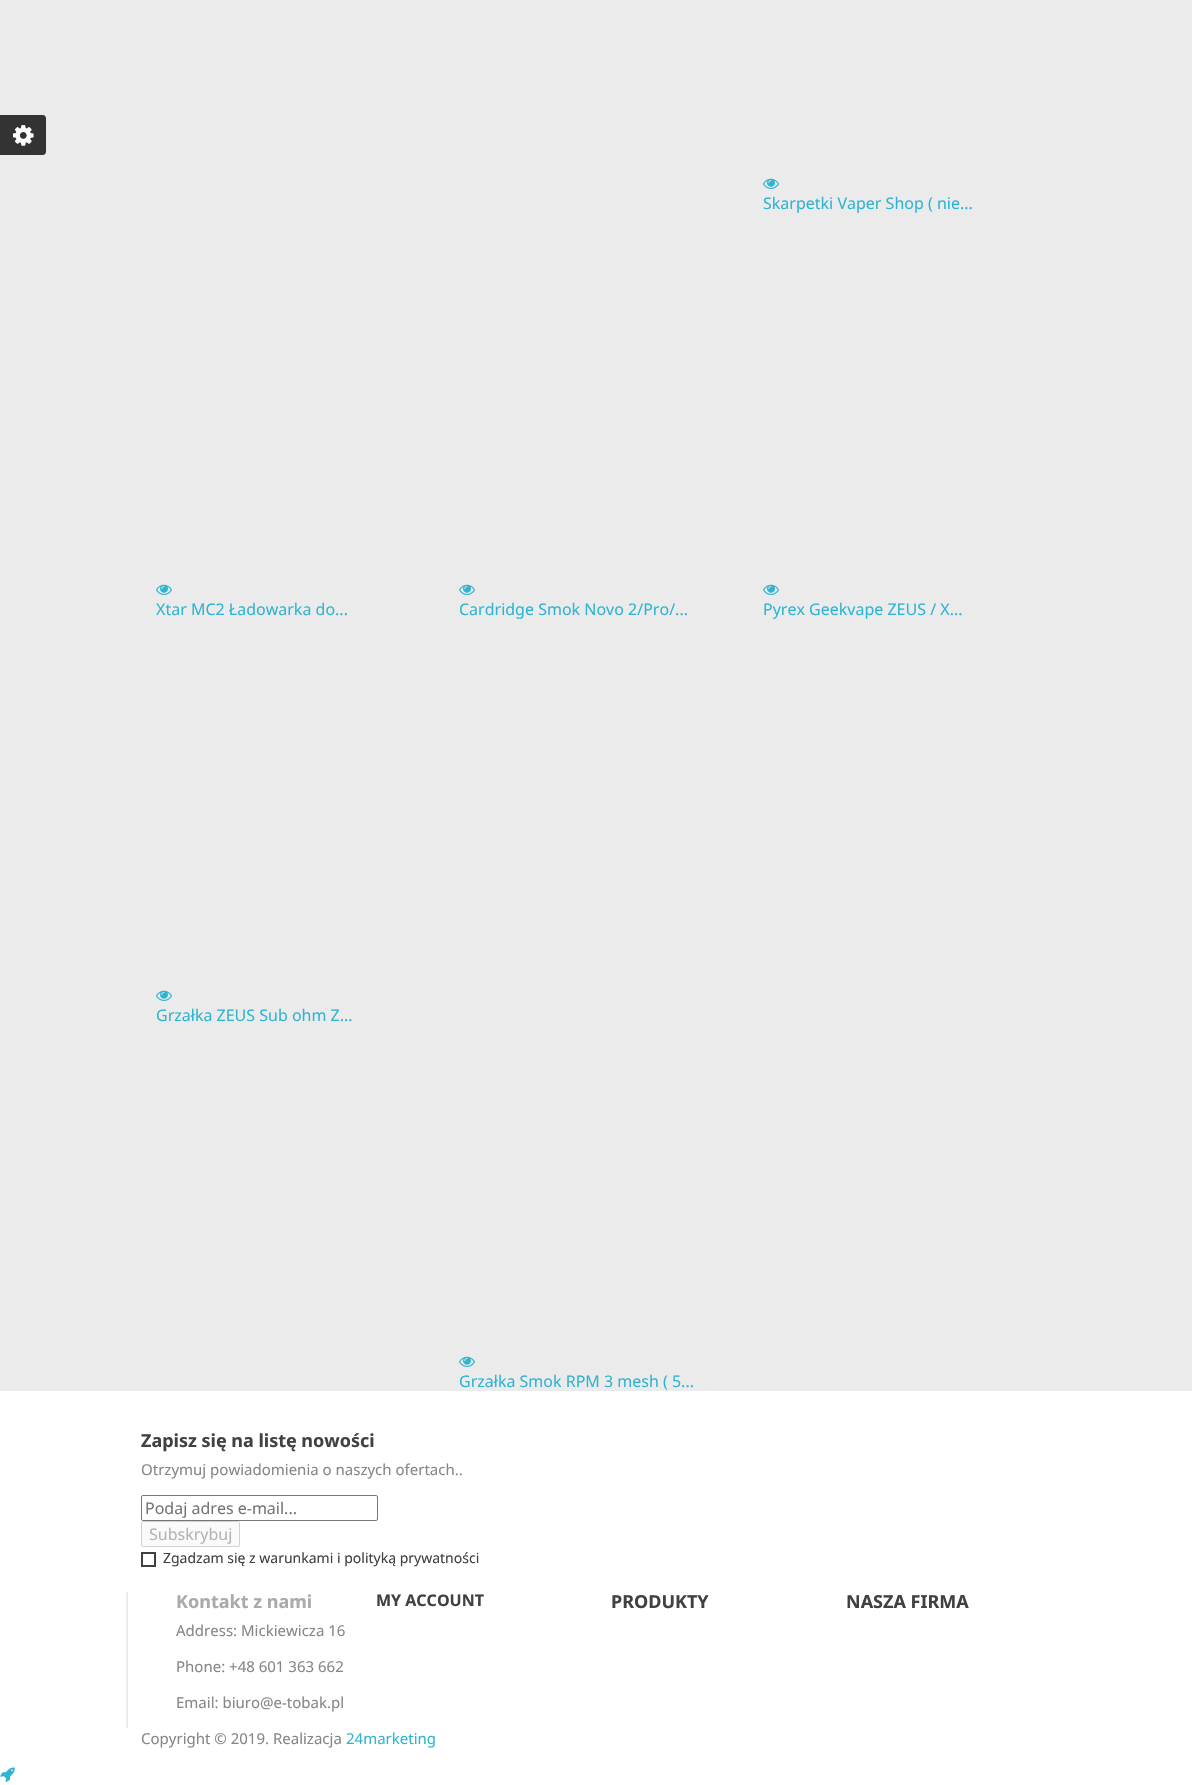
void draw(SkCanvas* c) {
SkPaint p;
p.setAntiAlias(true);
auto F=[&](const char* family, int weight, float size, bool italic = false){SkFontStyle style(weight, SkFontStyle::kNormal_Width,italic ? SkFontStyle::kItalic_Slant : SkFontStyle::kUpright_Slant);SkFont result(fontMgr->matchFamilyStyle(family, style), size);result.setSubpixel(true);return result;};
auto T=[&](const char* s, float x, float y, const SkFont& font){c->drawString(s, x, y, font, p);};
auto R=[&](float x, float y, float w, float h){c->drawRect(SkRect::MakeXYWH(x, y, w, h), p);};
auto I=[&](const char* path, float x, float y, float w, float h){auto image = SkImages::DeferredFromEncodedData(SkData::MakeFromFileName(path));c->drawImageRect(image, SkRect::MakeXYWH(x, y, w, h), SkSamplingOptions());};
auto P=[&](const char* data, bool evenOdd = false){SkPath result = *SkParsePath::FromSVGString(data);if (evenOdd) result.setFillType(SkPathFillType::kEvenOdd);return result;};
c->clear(0xffffffff);
p.setColor(0xffebebeb);
R(0,0,1192,1391);
p.setColor(0xff333333);
c->drawPath(P("M0 115h43c1.5 0 3 1.5 3 3v34c0 1.5-1.5 3-3 3h-43z"),p);
I("1.png",13,125,21,21);
I("2.png",763,178,16,11);
auto f1 = F("Noto Sans",400,16);
p.setColor(0xff2fb5d2);
T("Skarpetki Vaper Shop ( nie...",763,209,f1);
I("2.png",156,584,16,11);
T("Xtar MC2 Ładowarka do...",156,615,f1);
I("2.png",459,584,16,11);
T("Cardridge Smok Novo 2/Pro/...",459,615,f1);
I("2.png",763,584,16,11);
T("Pyrex Geekvape ZEUS / X...",763,615,f1);
I("2.png",156,990,16,11);
T("Grzałka ZEUS Sub ohm Z...",156,1021,f1);
I("2.png",459,1356,16,11);
T("Grzałka Smok RPM 3 mesh ( 5...",459,1387,f1);
auto f2 = F("Noto Sans",700,18);
p.setColor(0xff414141);
T("Zapisz się na listę nowości",141,1447,f2);
auto f3 = F("Noto Sans",400,15);
p.setColor(0xff878787);
T("Otrzymuj powiadomienia o naszych ofertach..",141,1475,f3);
p.setStroke(true);
p.setStrokeWidth(1);
p.setColor(0xff767676);
c->drawRoundRect(SkRect::MakeXYWH(141.5,1495.5,236,25),1.5,1.5,p);
p.setStroke(false);
p.setColor(0xff757575);
T("Podaj adres e-mail...",145,1514,f1);
p.setColor(0xfffafafa);
c->drawRoundRect(SkRect::MakeXYWH(141.5,1521.5,98,25),1.5,1.5,p);
p.setStroke(true);
p.setColor(0xffd2d2d2);
c->drawRoundRect(SkRect::MakeXYWH(141.5,1521.5,98,25),1.5,1.5,p);
p.setStroke(false);
p.setColor(0xffb4b4b4);
T("Subskrybuj",149,1540,f1);
p.setStroke(true);
p.setStrokeWidth(2);
p.setColor(0xff414141);
c->drawRect(SkRect::MakeXYWH(142,1553,13,13),p);
auto f4 = F("Noto Sans",400,14);
p.setStroke(false);
T("Zgadzam się z warunkami i polityką prywatności",163,1563,f4);
p.setColor(0xffebebeb);
R(126,1592,2,136);
p.setColor(0xffacaaa6);
T("Kontakt z nami",176,1608,f2);
p.setColor(0xff878787);
T("Address: Mickiewicza 16",176,1636,f3);
T("Phone: +48 601 363 662",176,1672,f3);
T("Email: biuro@e-tobak.pl",176,1708,f3);
auto f5 = F("Noto Sans",700,16);
p.setColor(0xff414141);
T("MY ACCOUNT",376,1606,f5);
T("PRODUKTY",611,1608,f2);
T("NASZA FIRMA",846,1608,f2);
p.setColor(0xff878787);
T("Copyright © 2019. Realizacja",141,1744,f3);
p.setColor(0xff2fb5d2);
T("24marketing",346,1744,f3);
I("3.png",0,1767,15,15);
}
